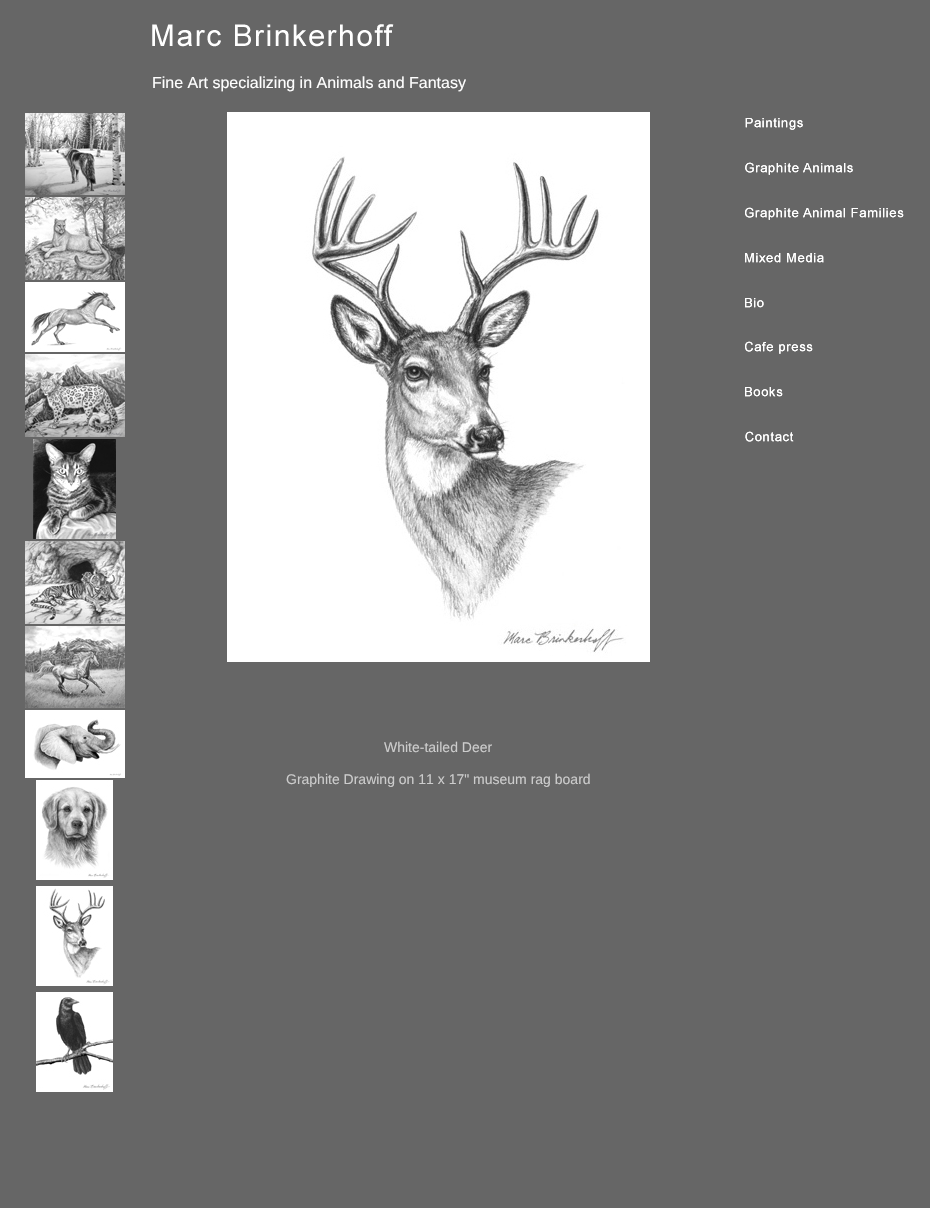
void draw(SkCanvas* c) {
SkPaint p;
p.setAntiAlias(true);
auto F=[&](const char* family, int weight, float size, bool italic = false){SkFontStyle style(weight, SkFontStyle::kNormal_Width,italic ? SkFontStyle::kItalic_Slant : SkFontStyle::kUpright_Slant);SkFont result(fontMgr->matchFamilyStyle(family, style), size);result.setSubpixel(true);return result;};
auto T=[&](const char* s, float x, float y, const SkFont& font){c->drawString(s, x, y, font, p);};
auto I=[&](const char* path, float x, float y, float w, float h){auto image = SkImages::DeferredFromEncodedData(SkData::MakeFromFileName(path));c->drawImageRect(image, SkRect::MakeXYWH(x, y, w, h), SkSamplingOptions());};
c->clear(0xff666666);
I("1.png",152,24,242,23);
auto f1 = F("Liberation Sans",400,16);
p.setColor(0xffffffff);
T("Fine Art specializing in Animals and Fantasy",152,88,f1);
I("2.png",25,113,100,82);
I("3.png",25,197,100,83);
I("4.png",25,282,100,70);
I("5.png",25,354,100,83);
I("6.png",33,439,83,100);
I("7.png",25,541,100,83);
I("8.png",25,626,100,82);
I("9.png",25,710,100,68);
I("10.png",36,780,77,100);
I("11.png",36,886,77,100);
I("12.png",36,992,77,100);
I("13.png",227,112,423,550);
I("14.png",745,118,58,12);
I("15.png",745,162,108,13);
I("16.png",745,207,159,13);
I("17.png",745,253,79,10);
I("18.png",745,298,19,10);
I("19.png",745,341,68,13);
I("20.png",745,387,38,10);
I("21.png",745,431,49,11);
auto f2 = F("Liberation Sans",400,14);
p.setColor(0xffcccccc);
T("White-tailed Deer",384,752,f2);
T("Graphite Drawing on 11 x 17\" museum rag board",286,784,f2);
}
